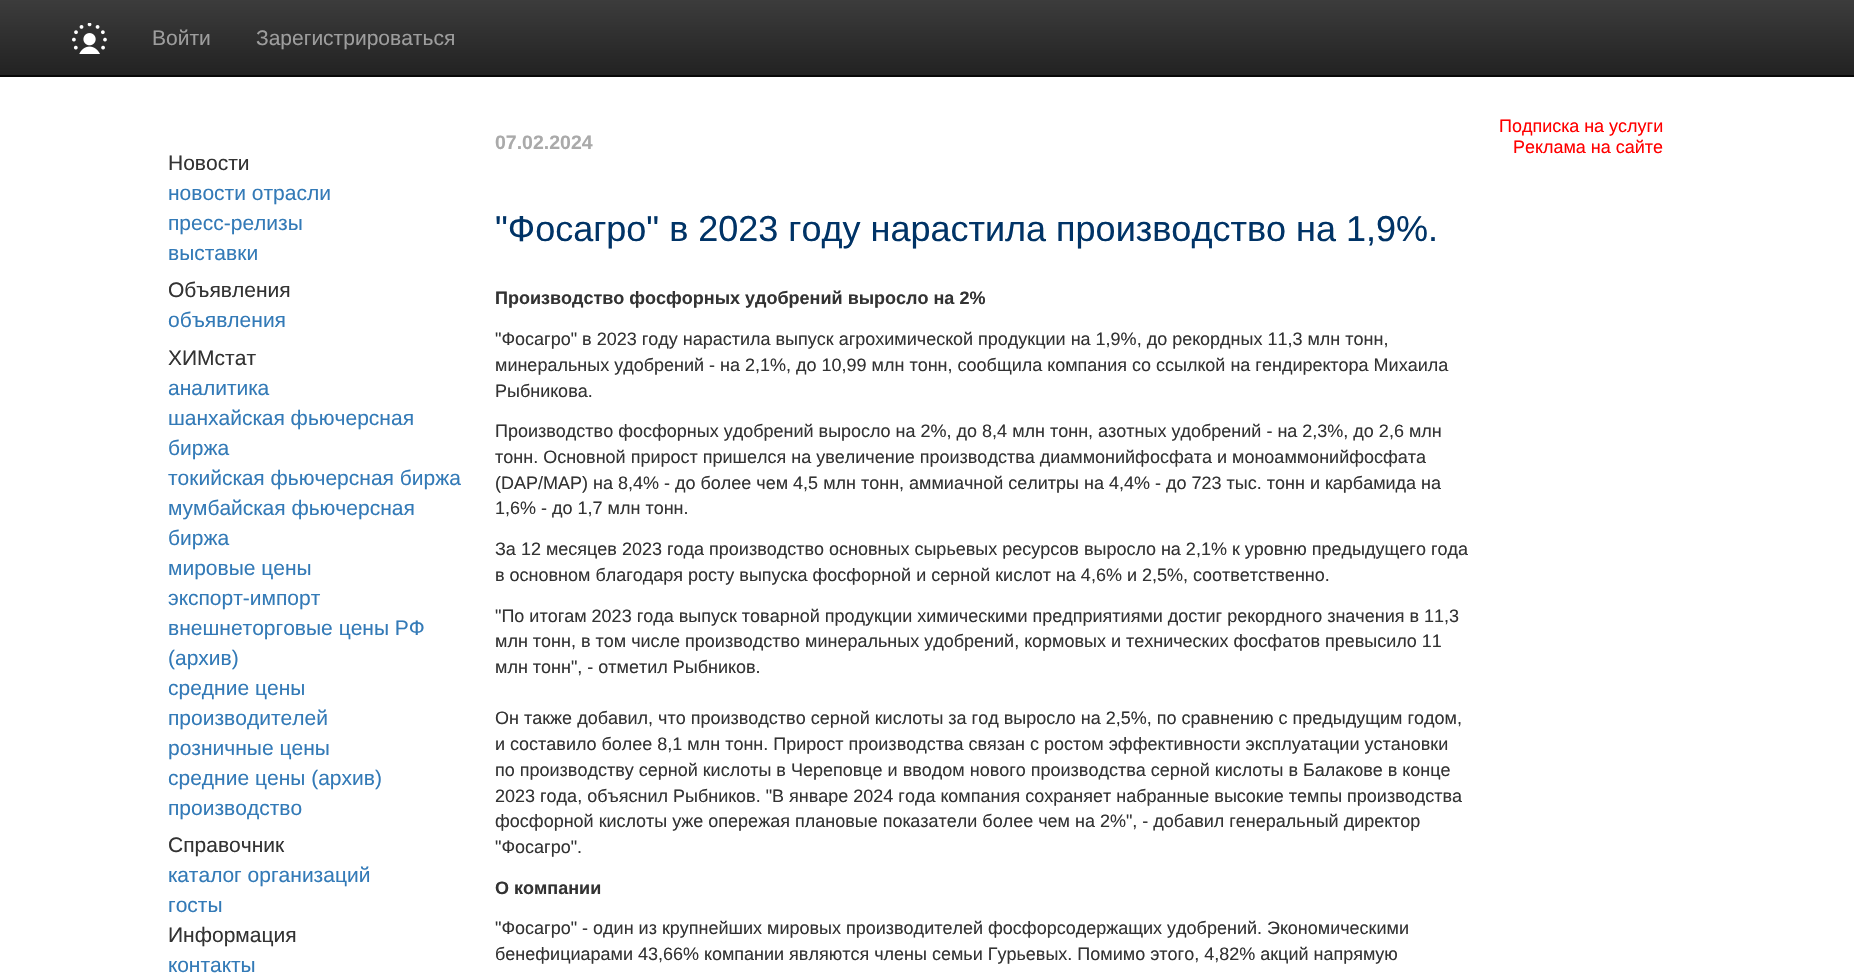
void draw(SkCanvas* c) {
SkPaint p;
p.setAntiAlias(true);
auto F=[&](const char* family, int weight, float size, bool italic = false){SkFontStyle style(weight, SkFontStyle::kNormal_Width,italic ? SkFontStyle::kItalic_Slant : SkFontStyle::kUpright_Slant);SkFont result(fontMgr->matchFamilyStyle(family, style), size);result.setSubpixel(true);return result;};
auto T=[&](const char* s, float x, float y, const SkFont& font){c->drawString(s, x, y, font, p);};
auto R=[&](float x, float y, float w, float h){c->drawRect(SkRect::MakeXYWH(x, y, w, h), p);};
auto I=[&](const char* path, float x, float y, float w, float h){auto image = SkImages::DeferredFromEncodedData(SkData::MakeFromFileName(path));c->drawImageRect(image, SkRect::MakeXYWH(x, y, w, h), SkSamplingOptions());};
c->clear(0xffffffff);
{
const SkColor colors[] = {0xff3c3c3c,0xff222222};
const float stops[] = {0,1};
const SkPoint ends[] = {{927,0}, {927,75}};
p.setShader(SkGradientShader::MakeLinear(ends, colors, stops, 2, SkTileMode::kClamp));
p.setAlpha(255);
}
R(0,0,1854,75);
p.setShader(nullptr);
p.setColor(0xff080808);
R(0,75,1854,2);
I("1.png",72,23,35,31);
auto f1 = F("Liberation Sans",400,21);
p.setColor(0xff9d9d9d);
T("Войти",152,45,f1);
T("Зарегистрироваться",256,45,f1);
p.setColor(0xff333333);
T("Новости",168,170,f1);
p.setColor(0xff337ab7);
T("новости отрасли",168,200,f1);
T("пресс-релизы",168,230,f1);
T("выставки",168,260,f1);
p.setColor(0xff333333);
T("Объявления",168,297,f1);
p.setColor(0xff337ab7);
T("объявления",168,327,f1);
p.setColor(0xff333333);
T("ХИМстат",168,365,f1);
p.setColor(0xff337ab7);
T("аналитика",168,395,f1);
T("шанхайская фьючерсная",168,425,f1);
T("биржа",168,455,f1);
T("токийская фьючерсная биржа",168,485,f1);
T("мумбайская фьючерсная",168,515,f1);
T("биржа",168,545,f1);
T("мировые цены",168,575,f1);
T("экспорт-импорт",168,605,f1);
T("внешнеторговые цены РФ",168,635,f1);
T("(архив)",168,665,f1);
T("средние цены",168,695,f1);
T("производителей",168,725,f1);
T("розничные цены",168,755,f1);
T("средние цены (архив)",168,785,f1);
T("производство",168,815,f1);
p.setColor(0xff333333);
T("Справочник",168,852,f1);
p.setColor(0xff337ab7);
T("каталог организаций",168,882,f1);
T("госты",168,912,f1);
p.setColor(0xff333333);
T("Информация",168,942,f1);
p.setColor(0xff337ab7);
T("контакты",168,972,f1);
auto f2 = F("Liberation Sans",700,19.5);
p.setColor(0xffaaaaaa);
T("07.02.2024",495,149,f2);
auto f3 = F("Liberation Sans",400,36);
p.setColor(0xff003366);
T("\"Фосагро\" в 2023 году нарастила производство на 1,9%.",495,241,f3);
auto f4 = F("Liberation Sans",700,18);
p.setColor(0xff333333);
T("Производство фосфорных удобрений выросло на 2%",495,304,f4);
auto f5 = F("Liberation Sans",400,18);
T("\"Фосагро\" в 2023 году нарастила выпуск агрохимической продукции на 1,9%, до рекордных 11,3 млн тонн,",495,345,f5);
T("минеральных удобрений - на 2,1%, до 10,99 млн тонн, сообщила компания со ссылкой на гендиректора Михаила",495,371,f5);
T("Рыбникова.",495,397,f5);
T("Производство фосфорных удобрений выросло на 2%, до 8,4 млн тонн, азотных удобрений - на 2,3%, до 2,6 млн",495,437,f5);
T("тонн. Основной прирост пришелся на увеличение производства диаммонийфосфата и моноаммонийфосфата",495,463,f5);
T("(DAP/MAP) на 8,4% - до более чем 4,5 млн тонн, аммиачной селитры на 4,4% - до 723 тыс. тонн и карбамида на",495,489,f5);
T("1,6% - до 1,7 млн тонн.",495,514,f5);
T("За 12 месяцев 2023 года производство основных сырьевых ресурсов выросло на 2,1% к уровню предыдущего года",495,555,f5);
T("в основном благодаря росту выпуска фосфорной и серной кислот на 4,6% и 2,5%, соответственно.",495,581,f5);
T("\"По итогам 2023 года выпуск товарной продукции химическими предприятиями достиг рекордного значения в 11,3",495,622,f5);
T("млн тонн, в том числе производство минеральных удобрений, кормовых и технических фосфатов превысило 11",495,647,f5);
T("млн тонн\", - отметил Рыбников.",495,673,f5);
T("Он также добавил, что производство серной кислоты за год выросло на 2,5%, по сравнению с предыдущим годом,",495,724,f5);
T("и составило более 8,1 млн тонн. Прирост производства связан с ростом эффективности эксплуатации установки",495,750,f5);
T("по производству серной кислоты в Череповце и вводом нового производства серной кислоты в Балакове в конце",495,776,f5);
T("2023 года, объяснил Рыбников. \"В январе 2024 года компания сохраняет набранные высокие темпы производства",495,802,f5);
T("фосфорной кислоты уже опережая плановые показатели более чем на 2%\", - добавил генеральный директор",495,827,f5);
T("\"Фосагро\".",495,853,f5);
T("О компании",495,894,f4);
T("\"Фосагро\" - один из крупнейших мировых производителей фосфорсодержащих удобрений. Экономическими",495,934,f5);
T("бенефициарами 43,66% компании являются члены семьи Гурьевых. Помимо этого, 4,82% акций напрямую",495,960,f5);
p.setColor(0xffff0000);
T("Подписка на услуги",1499,132,f5);
T("Реклама на сайте",1513,153,f5);
}
